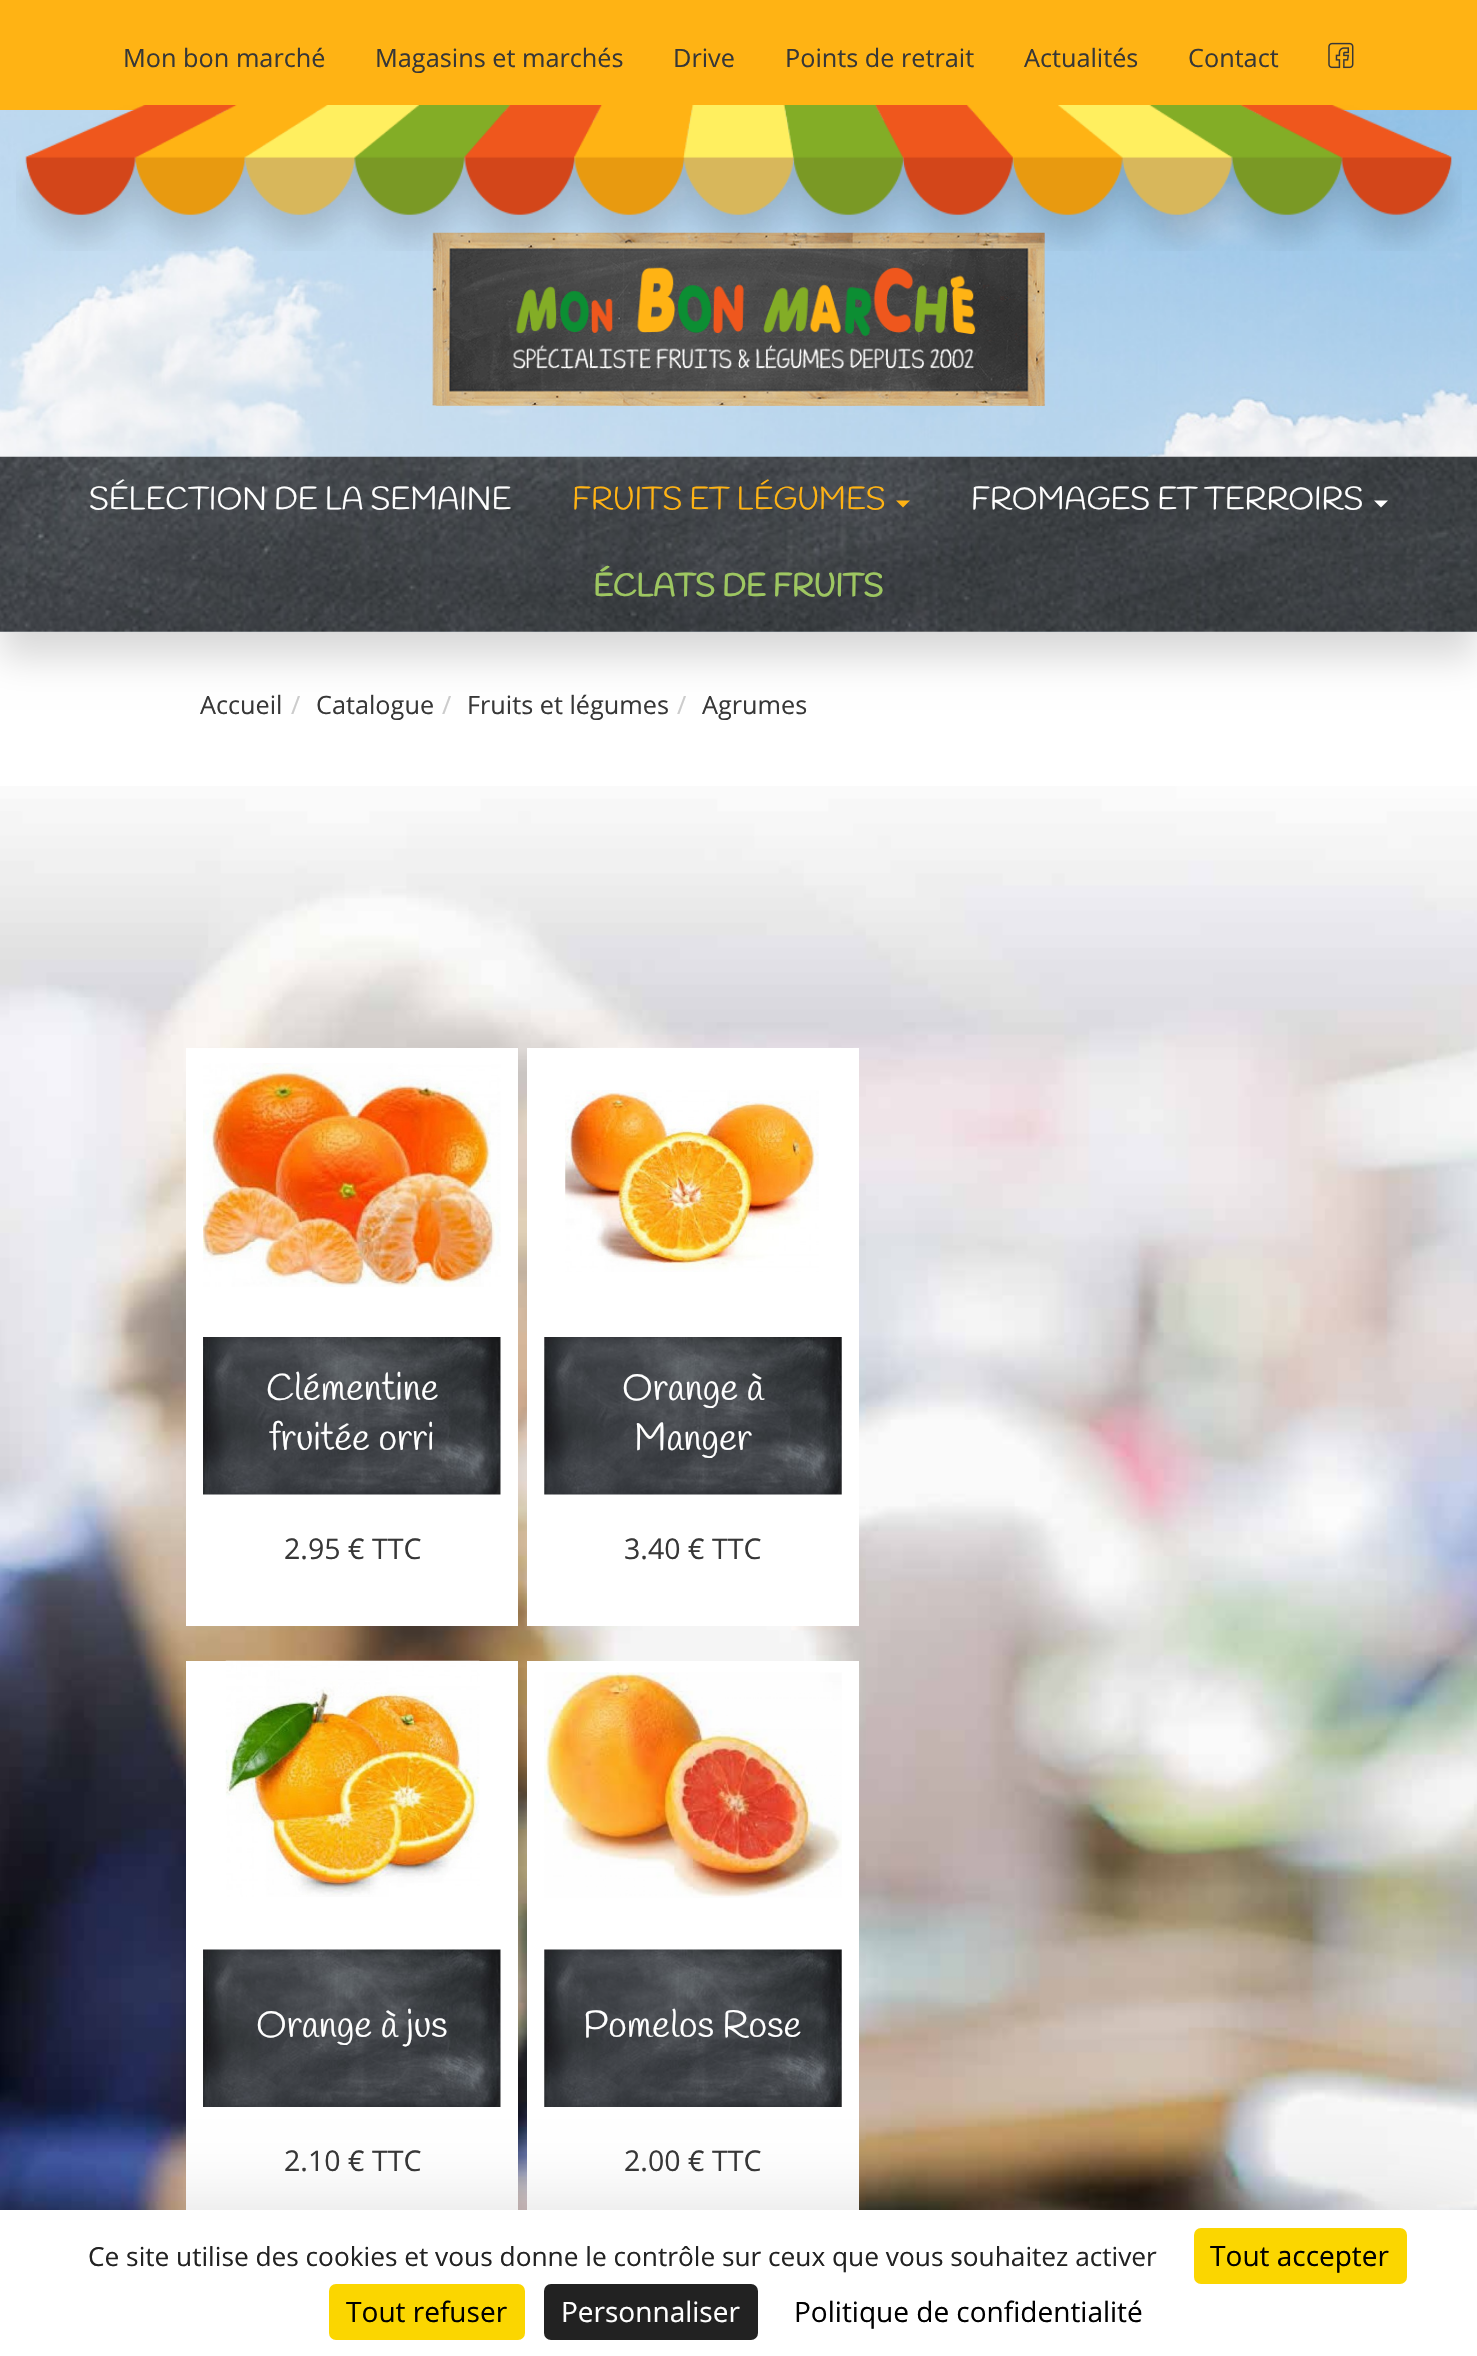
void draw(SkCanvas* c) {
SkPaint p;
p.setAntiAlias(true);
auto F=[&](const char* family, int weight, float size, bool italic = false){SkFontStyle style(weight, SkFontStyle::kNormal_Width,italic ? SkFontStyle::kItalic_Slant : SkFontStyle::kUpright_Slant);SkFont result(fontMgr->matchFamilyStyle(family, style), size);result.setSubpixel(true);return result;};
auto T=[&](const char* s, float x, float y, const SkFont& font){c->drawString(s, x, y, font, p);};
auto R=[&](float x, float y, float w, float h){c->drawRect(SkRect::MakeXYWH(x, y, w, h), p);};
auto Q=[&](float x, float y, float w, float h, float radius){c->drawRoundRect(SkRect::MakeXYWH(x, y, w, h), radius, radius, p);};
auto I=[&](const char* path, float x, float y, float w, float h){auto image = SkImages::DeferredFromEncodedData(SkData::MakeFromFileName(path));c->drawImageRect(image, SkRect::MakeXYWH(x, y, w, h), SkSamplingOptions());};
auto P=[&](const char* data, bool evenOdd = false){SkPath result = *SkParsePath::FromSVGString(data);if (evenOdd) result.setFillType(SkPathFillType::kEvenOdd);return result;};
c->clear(0xffffffff);
p.setColor(0x26000000);
p.setMaskFilter(SkMaskFilter::MakeBlur(kNormal_SkBlurStyle, 17.5));
c->drawRect(SkRect::MakeXYWH(0,26,1477,632),p);
p.setMaskFilter(nullptr);
I("1.png",0,110,1477,522);
p.setColor(0xffffb314);
R(0,0,1477,110);
auto f1 = F("Open Sans",400,25.25);
p.setColor(0xff373737);
T("Mon bon marché",123,67,f1);
T("Magasins et marchés",375,67,f1);
T("Drive",673,67,f1);
T("Points de retrait",785,67,f1);
T("Actualités",1024,67,f1);
T("Contact",1188,67,f1);
I("2.png",1328,42,26,27);
I("4.png",432,232,613,174);
I("3.png",16,105,1446,146);
I("5.png",0,456,1477,176);
auto f2 = F("Handlee",400,31.5);
p.setColor(0xffffffff);
T("SÉLECTION DE LA SEMAINE",89,509,f2);
p.setColor(0xffffb314);
T("FRUITS ET LÉGUMES",572,509,f2);
c->drawPath(P("M896 500.5h14l-7 7z"),p);
p.setColor(0xffffffff);
T("FROMAGES ET TERROIRS",971,509,f2);
c->drawPath(P("M1374 500.5h14l-7 7z"),p);
auto f3 = F("Handlee",700,31.5);
p.setColor(0xff9ec761);
T("ÉCLATS DE FRUITS",593,596,f3);
p.setColor(0xff373737);
T("Accueil",200,714,f1);
p.setColor(0xffcccccc);
T("/",291,714,f1);
p.setColor(0xff373737);
T("Catalogue",316,714,f1);
p.setColor(0xffcccccc);
T("/",442,714,f1);
p.setColor(0xff373737);
T("Fruits et légumes",467,714,f1);
p.setColor(0xffcccccc);
T("/",677,714,f1);
p.setColor(0xff373737);
T("Agrumes",702,714,f1);
I("6.png",0,786,1477,1424);
p.setColor(0xffffffff);
R(186,1048,332,578);
I("7.png",203,1063,298,224);
I("8.png",203,1337,298,158);
auto f4 = F("Handlee",400,37.75);
T("Clémentine",266,1400,f4);
T("fruitée orri",269,1450,f4);
auto f5 = F("Open Sans",400,28.5);
p.setColor(0xff373737);
T("2.95 € TTC",284,1559,f5);
p.setColor(0xffffffff);
R(527,1048,332,578);
I("9.png",565,1090,254,182);
I("10.png",544,1337,298,158);
T("Orange à",622,1400,f4);
T("Manger",634,1450,f4);
p.setColor(0xff373737);
T("3.40 € TTC",624,1559,f5);
p.setColor(0xffffffff);
R(186,1661,332,549);
I("11.png",225,1660,255,237);
I("12.png",203,1949,298,158);
T("Orange à jus",256,2037,f4);
p.setColor(0xff373737);
T("2.10 € TTC",284,2171,f5);
p.setColor(0xffffffff);
R(527,1661,332,549);
I("13.png",544,1672,298,226);
I("14.png",544,1949,298,158);
T("Pomelos Rose",583,2037,f4);
p.setColor(0xff373737);
T("2.00 € TTC",624,2171,f5);
p.setColor(0x40000000);
p.setMaskFilter(SkMaskFilter::MakeBlur(kNormal_SkBlurStyle, 52.5));
c->drawRect(SkRect::MakeXYWH(0,2245,1477,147),p);
p.setMaskFilter(nullptr);
p.setColor(0xffffffff);
R(0,2210,1477,146);
auto f6 = F("Open Sans",400,26.25);
p.setColor(0xff222222);
T("Ce site utilise des cookies et vous donne le contrôle sur ceux que vous souhaitez activer",88,2266,f6);
p.setColor(0xfffbd600);
Q(1194,2228,213,56,7);
auto f7 = F("Open Sans",400,28);
p.setColor(0xff000000);
T("Tout accepter",1210,2266,f7);
p.setColor(0xfffbd600);
Q(329,2284,196,56,7);
p.setColor(0xff000000);
T("Tout refuser",346,2322,f7);
p.setColor(0xff222222);
Q(544,2284,214,56,7);
p.setColor(0xffffffff);
T("Personnaliser",561,2322,f7);
p.setColor(0xff000000);
T("Politique de confidentialité",794,2322,f7);
}
